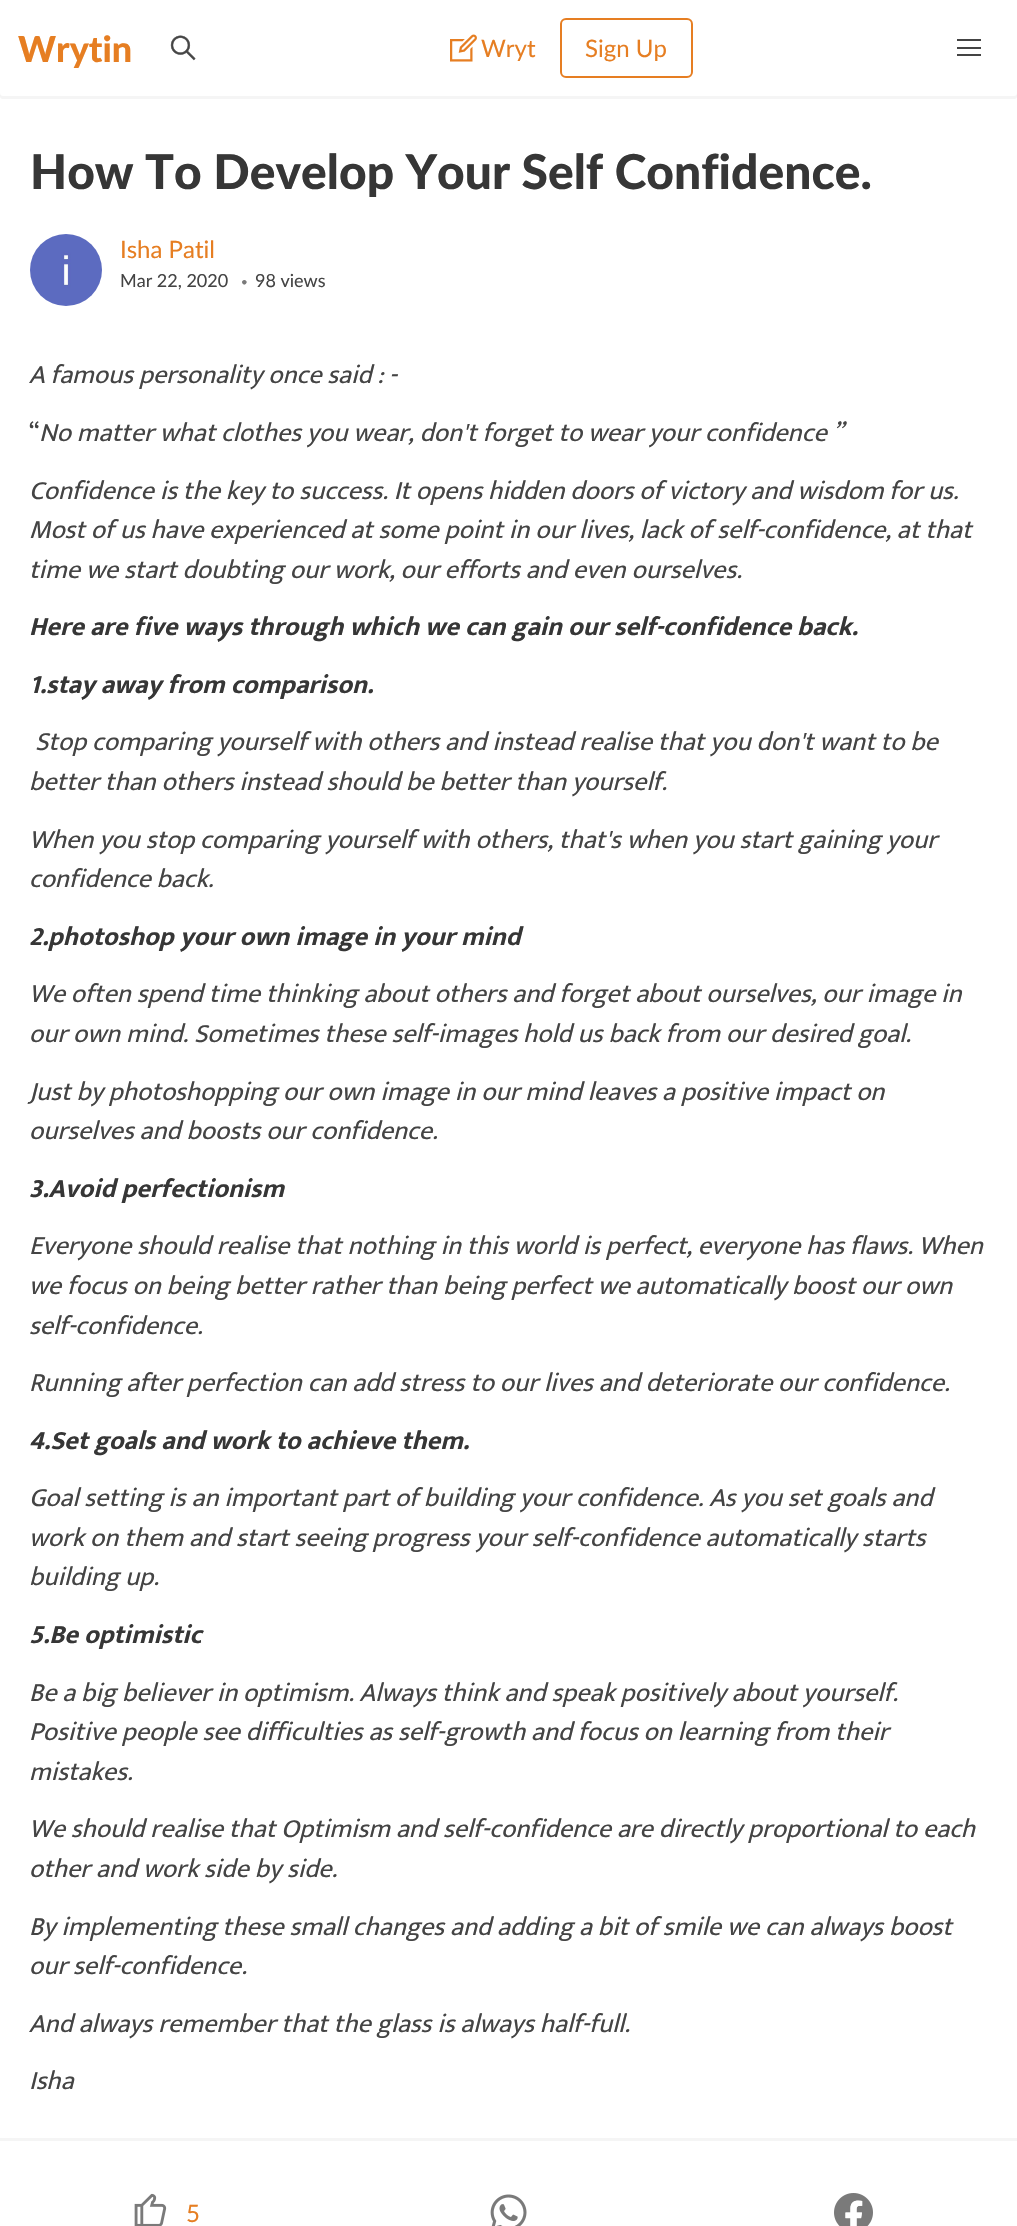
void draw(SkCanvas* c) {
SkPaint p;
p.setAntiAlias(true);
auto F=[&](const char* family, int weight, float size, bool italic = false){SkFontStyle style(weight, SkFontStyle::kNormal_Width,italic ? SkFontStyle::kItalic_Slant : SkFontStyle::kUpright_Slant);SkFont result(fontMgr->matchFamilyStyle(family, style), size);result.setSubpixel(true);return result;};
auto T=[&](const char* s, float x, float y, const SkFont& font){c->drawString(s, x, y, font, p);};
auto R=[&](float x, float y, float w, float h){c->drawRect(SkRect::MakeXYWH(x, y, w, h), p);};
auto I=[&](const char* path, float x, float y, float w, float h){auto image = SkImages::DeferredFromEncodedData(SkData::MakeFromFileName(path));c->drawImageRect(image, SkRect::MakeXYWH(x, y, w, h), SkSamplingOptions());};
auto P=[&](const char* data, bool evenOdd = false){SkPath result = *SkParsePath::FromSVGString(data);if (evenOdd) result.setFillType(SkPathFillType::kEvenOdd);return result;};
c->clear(0xffffffff);
p.setColor(0xfff5f5f5);
c->drawPath(P("M0 93v3c0 2 1 3 3 3h1011c2 0 3-1 3-3v-3c0 2-1 3-3 3h-1011c-2 0-3-1-3-3z"),p);
auto f1 = F("Lato",900,36);
p.setColor(0xffe67e22);
T("Wrytin",18,62,f1);
I("1.png",170,35,26,26);
I("2.png",450,34,27,28);
auto f2 = F("Lato",400,24);
T("Wryt",481,57,f2);
p.setStroke(true);
p.setStrokeWidth(2);
c->drawRoundRect(SkRect::MakeXYWH(561,19,131,58),5,5,p);
p.setStroke(false);
T("Sign Up",585,57,f2);
p.setColor(0xff444444);
R(957,39,24,2);
R(957,47,24,2);
R(957,54,24,2);
auto f3 = F("Lato",900,48);
p.setColor(0xff363636);
T("How To Develop Your Self Confidence.",30,189,f3);
p.setColor(0xfff8f8f8);
c->drawCircle(66,270,36,p);
I("3.png",30,234,72,72);
p.setColor(0xffe67e22);
T("Isha Patil",120,258,f2);
auto f4 = F("Lato",400,18);
p.setColor(0xff444444);
T("Mar 22, 2020",120,287,f4);
auto f5 = F("Mukta",400,18);
p.setColor(0xff7a7a7a);
T("•",241,287,f5);
p.setColor(0xff444444);
T("98 views",255,287,f4);
auto f6 = F("Mukta",400,26.4,true);
T("A famous personality once said : -",29,383,f6);
auto f7 = F("Mukta",400,26.4);
T("“",29,441,f7);
T("No matter what clothes you wear, don't forget to wear your confidence ”",39,441,f6);
T("Confidence is the key to success. It opens hidden doors of victory and wisdom for us.",29,499,f6);
T("Most of us have experienced at some point in our lives, lack of self-confidence, at that",29,538,f6);
T("time we start doubting our work, our efforts and even ourselves.",29,578,f6);
auto f8 = F("Mukta",700,26.4,true);
p.setColor(0xff363636);
T("Here are five ways through which we can gain our self-confidence",29,635,f8);
T("back.",797,635,f8);
T("1.stay away from comparison.",29,693,f8);
p.setColor(0xff444444);
T("Stop comparing yourself with others and instead realise that you don't want to be",35,750,f6);
T("better than others instead should be better than yourself.",29,790,f6);
T("When you stop comparing yourself with others, that's when you start gaining your",29,848,f6);
T("confidence back.",29,887,f6);
p.setColor(0xff363636);
T("2.photoshop your own image in your mind",29,945,f8);
p.setColor(0xff444444);
T("We often spend time thinking about others and forget about ourselves, our image in",29,1002,f6);
T("our own mind. Sometimes these self-images hold us back from our desired goal.",29,1042,f6);
T("Just by photoshopping our own image in our mind leaves a positive impact on",29,1100,f6);
T("ourselves and boosts our confidence.",29,1139,f6);
p.setColor(0xff363636);
T("3.Avoid perfectionism",29,1197,f8);
p.setColor(0xff444444);
T("Everyone should realise that nothing in this world is perfect, everyone has flaws. When",29,1254,f6);
T("we focus on being better rather than being perfect we automatically boost our own",29,1294,f6);
T("self-confidence.",29,1334,f6);
T("Running after perfection can add stress to our lives and deteriorate our confidence.",29,1391,f6);
p.setColor(0xff363636);
T("4.Set goals and work to achieve them.",29,1449,f8);
p.setColor(0xff444444);
T("Goal setting is an important part of building your confidence. As you set goals and",29,1506,f6);
T("work on them and start seeing progress your self-confidence automatically starts",29,1546,f6);
T("building up.",29,1585,f6);
p.setColor(0xff363636);
T("5.Be optimistic",29,1643,f8);
p.setColor(0xff444444);
T("Be a big believer in optimism. Always think and speak positively about yourself.",29,1701,f6);
T("Positive people see difficulties as self-growth and focus on learning from their",29,1740,f6);
T("mistakes.",29,1780,f6);
T("We should realise that Optimism and self-confidence are directly proportional to each",29,1837,f6);
T("other and work side by side.",29,1877,f6);
T("By implementing these small changes and adding a bit of smile we can always boost",29,1935,f6);
T("our self-confidence.",29,1974,f6);
T("And always remember that the glass is always half-full.",29,2032,f6);
T("Isha",29,2089,f6);
p.setColor(0xfff5f5f5);
R(0,2138,1017,3);
I("4.png",134,2193,33,33);
p.setColor(0xffe67e22);
T("5",186,2222,f2);
I("5.png",490,2194,37,32);
I("6.png",834,2193,39,33);
}
